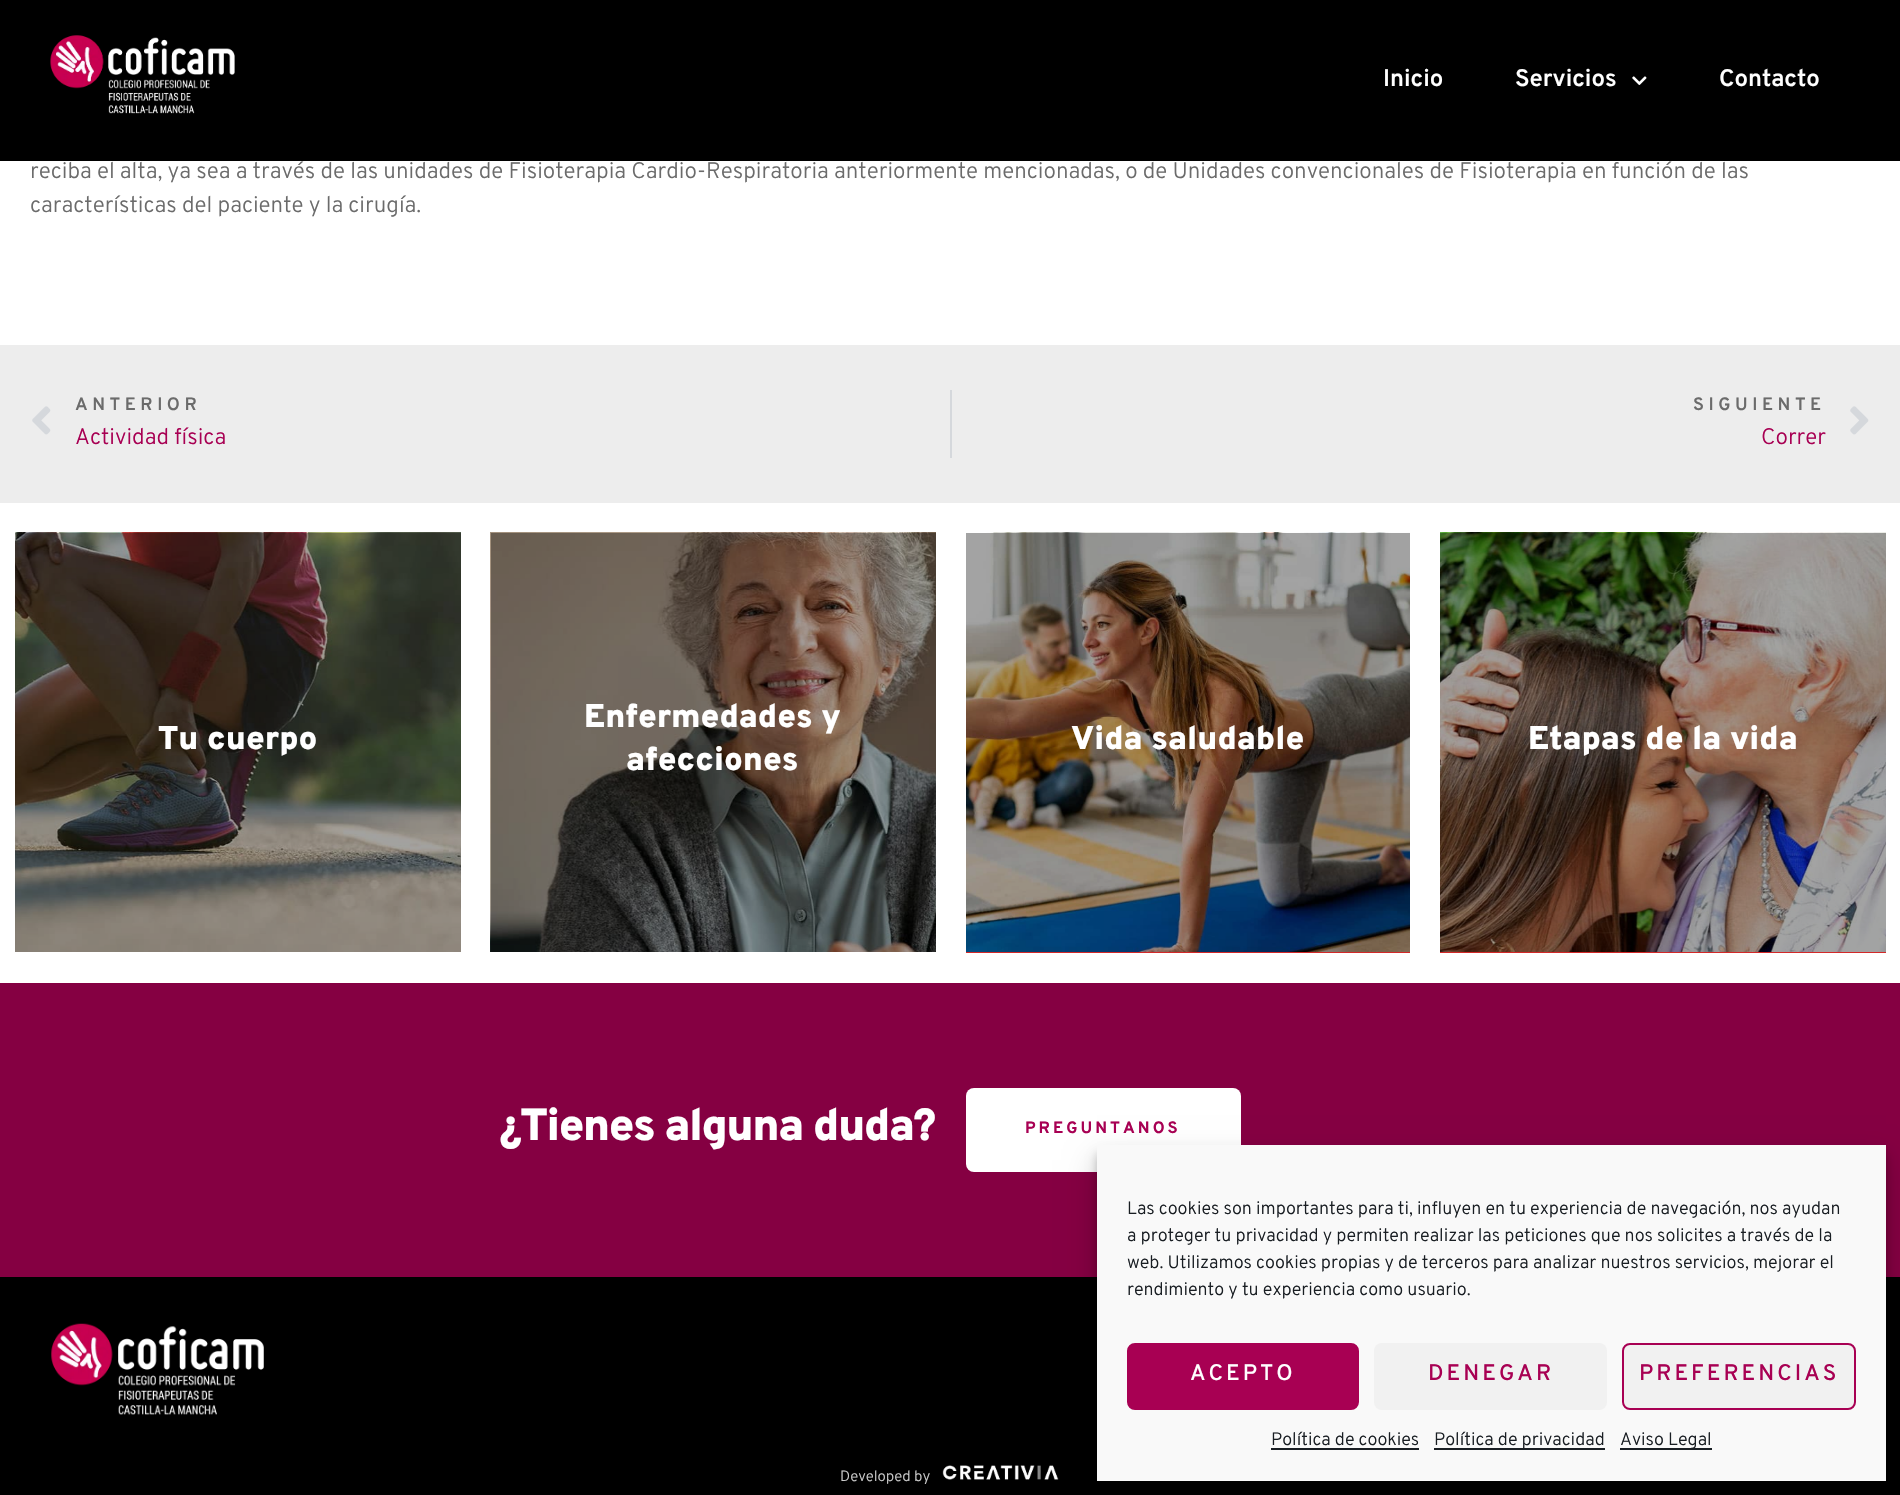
void draw(SkCanvas* c) {
SkPaint p;
p.setAntiAlias(true);
auto F=[&](const char* family, int weight, float size, bool italic = false){SkFontStyle style(weight, SkFontStyle::kNormal_Width,italic ? SkFontStyle::kItalic_Slant : SkFontStyle::kUpright_Slant);SkFont result(fontMgr->matchFamilyStyle(family, style), size);result.setSubpixel(true);return result;};
auto T=[&](const char* s, float x, float y, const SkFont& font){c->drawString(s, x, y, font, p);};
auto L=[&](const char* s, float x, float y, const SkFont& font, const SkPaint& ink, float letter, float word){std::vector<SkGlyphID> glyphs(font.countText(s, strlen(s), SkTextEncoding::kUTF8));std::vector<float> xs(glyphs.size());font.textToGlyphs(s, strlen(s), SkTextEncoding::kUTF8, glyphs);font.getXPos(glyphs, xs, x);float extra = 0;for (size_t i = 0; i < glyphs.size(); i++) {xs[i] += extra;extra += letter + word * (glyphs[i] == font.unicharToGlyph(' '));}c->drawTextBlob(SkTextBlob::MakeFromPosHGlyphs(glyphs, xs, y, font), 0, 0, ink);};
auto R=[&](float x, float y, float w, float h){c->drawRect(SkRect::MakeXYWH(x, y, w, h), p);};
auto Q=[&](float x, float y, float w, float h, float radius){c->drawRoundRect(SkRect::MakeXYWH(x, y, w, h), radius, radius, p);};
auto I=[&](const char* path, float x, float y, float w, float h){auto image = SkImages::DeferredFromEncodedData(SkData::MakeFromFileName(path));c->drawImageRect(image, SkRect::MakeXYWH(x, y, w, h), SkSamplingOptions());};
c->clear(0xffffffff);
p.setColor(0xff000000);
R(0,0,1900,161);
I("1.png",50,35,185,79);
auto f1 = F("Overpass",600,24);
p.setColor(0xffffffff);
T("Inicio",1383,86,f1);
T("Servicios",1515,86,f1);
I("2.png",1632,76,15,9);
T("Contacto",1719,86,f1);
auto f2 = F("Overpass",300,22.5);
p.setColor(0xff6b6b6b);
T("reciba el alta, ya sea a través de las unidades de Fisioterapia Cardio-Respiratoria anteriormente mencionadas, o de Unidades convencionales de Fisioterapia en función de las",30,178,f2);
T("características del paciente y la cirugía.",30,212,f2);
p.setColor(0xffededed);
R(0,345,1900,158);
I("3.png",32,406,19,29);
auto f3 = F("Overpass",600,18);
p.setColor(0xff6b6b6b);
L("ANTERIOR",75,410,f3,p,4.5,0);
p.setColor(0xffa80053);
T("Actividad física",75,444,f2);
p.setColor(0xffd5d8dc);
R(950,390,2,68);
p.setColor(0xff6b6b6b);
L("SIGUIENTE",1693,410,f3,p,4.5,0);
p.setColor(0xffa80053);
T("Correr",1761,444,f2);
I("4.png",1850,406,19,29);
I("5.png",15,532,446,420);
auto f4 = F("Overpass",900,33);
p.setColor(0xffffffff);
T("Tu cuerpo",158,749,f4);
I("6.png",490,532,446,420);
T("Enfermedades y",584,727,f4);
T("afecciones",626,770,f4);
p.setColor(0xffd32828);
R(966,952,444,1);
I("7.png",966,532,444,420);
p.setColor(0xffffffff);
T("Vida saludable",1071,749,f4);
p.setColor(0xffd32828);
R(1440,952,446,1);
I("8.png",1440,532,446,420);
p.setColor(0xffffffff);
T("Etapas de la vida",1528,749,f4);
p.setColor(0xff850042);
R(0,983,1900,294);
auto f5 = F("Overpass",900,45);
p.setColor(0xffffffff);
L("¿Tienes alguna duda?",499,1140,f5,p,-1.5,0);
Q(966,1088,275,84,8);
auto f6 = F("Overpass",700,16.5);
p.setColor(0xffa80053);
L("PREGUNTANOS",1025,1133,f6,p,3,0);
p.setColor(0xff000000);
R(0,1277,1900,218);
p.setColor(0x3b000000);
p.setMaskFilter(SkMaskFilter::MakeBlur(kNormal_SkBlurStyle, 4.5));
c->drawRect(SkRect::MakeXYWH(1097,1154,789,336),p);
p.setMaskFilter(nullptr);
I("10.png",942,1465,117,15);
p.setColor(0x30000000);
p.setMaskFilter(SkMaskFilter::MakeBlur(kNormal_SkBlurStyle, 15));
c->drawRect(SkRect::MakeXYWH(1097,1160,789,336),p);
p.setMaskFilter(nullptr);
p.setColor(0xfff9f9f9);
R(1097,1145,789,336);
auto f7 = F("Overpass",300,18);
p.setColor(0xff191e23);
T("Las cookies son importantes para ti, influyen en tu experiencia de navegación, nos ayudan",1127,1214,f7);
T("a proteger tu privacidad y permiten realizar las peticiones que nos solicites a través de la",1127,1241,f7);
T("web. Utilizamos cookies propias y de terceros para analizar nuestros servicios, mejorar el",1127,1268,f7);
T("rendimiento y tu experiencia como usuario.",1127,1295,f7);
p.setColor(0xffa80053);
c->drawRoundRect(SkRect::MakeXYWH(1128,1344,230,65),7,7,p);
p.setStroke(true);
p.setStrokeWidth(2);
c->drawRoundRect(SkRect::MakeXYWH(1128,1344,230,65),7,7,p);
auto f8 = F("Overpass",500,22.5);
p.setStroke(false);
p.setColor(0xffffffff);
L("ACEPTO",1190,1380,f8,p,3,0);
p.setColor(0xfff1f1f1);
Q(1374,1343,233,67,8);
p.setColor(0xffa80053);
L("DENEGAR",1428,1380,f8,p,3,0);
p.setColor(0xfff1f1f1);
c->drawRoundRect(SkRect::MakeXYWH(1623,1344,232,65),7,7,p);
p.setStroke(true);
p.setColor(0xffa80053);
c->drawRoundRect(SkRect::MakeXYWH(1623,1344,232,65),7,7,p);
p.setStroke(false);
L("PREFERENCIAS",1639,1380,f8,p,3,0);
p.setColor(0xff191e23);
T("Política de cookies",1271,1445,f7);
R(1271,1448,148,2);
R(1434,1448,171,2);
T("Política de privacidad",1434,1445,f7);
R(1620,1448,92,2);
T("Aviso Legal",1620,1445,f7);
I("9.png",51,1323,213,92);
auto f9 = F("Overpass",300,15);
p.setColor(0xffcccccc);
T("Developed by",840,1481,f9);
}
